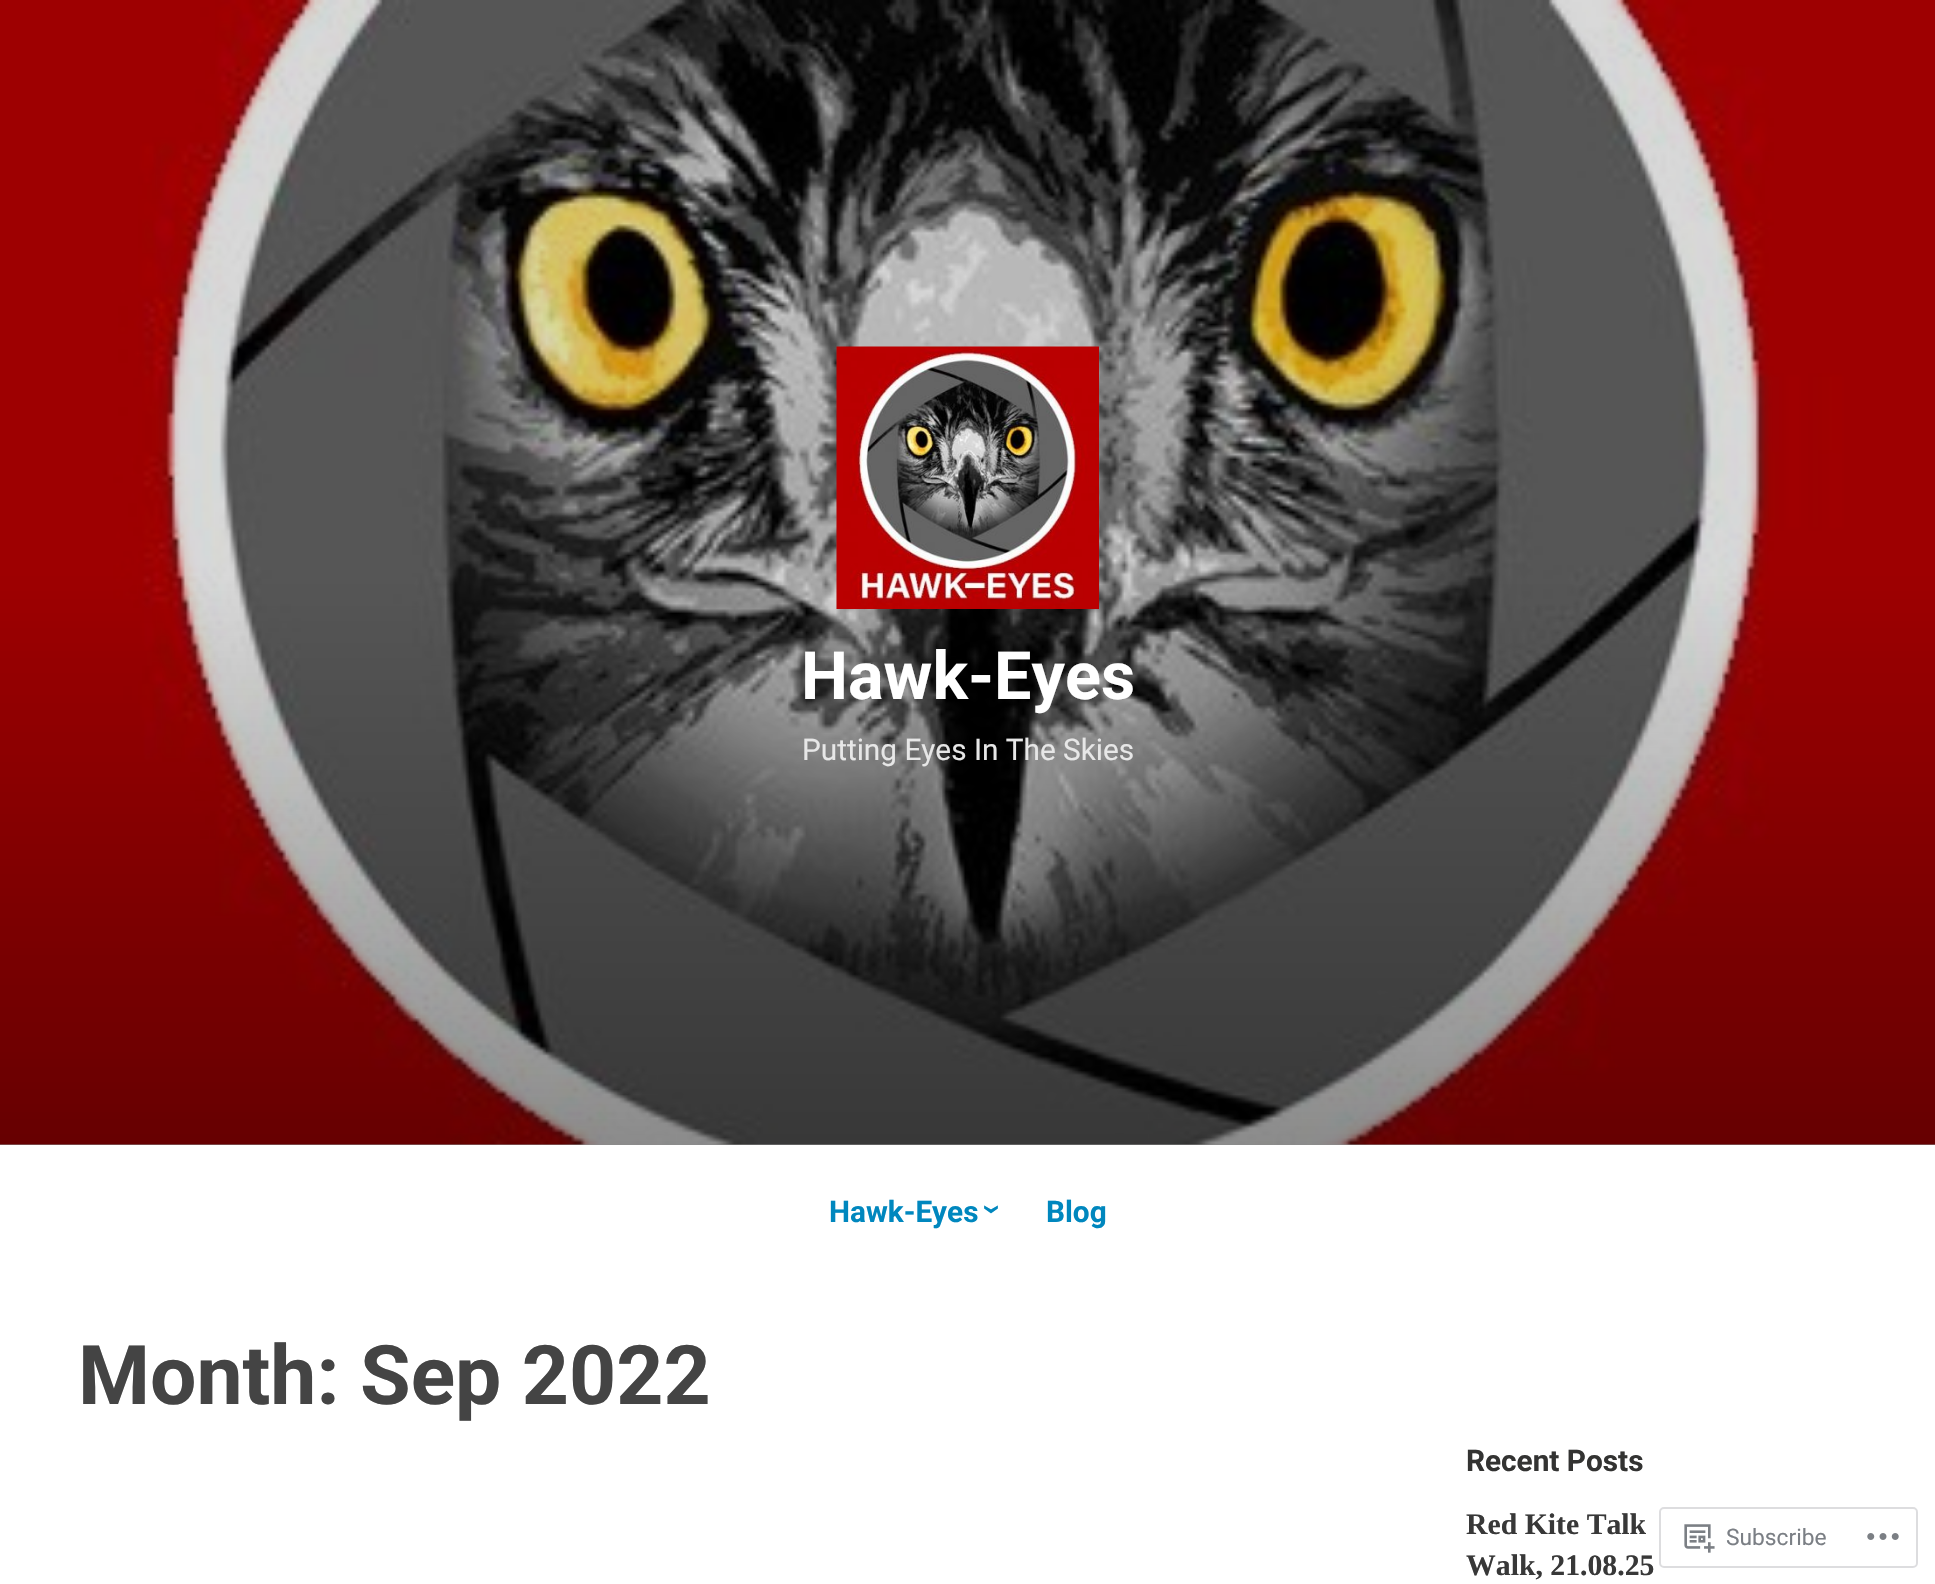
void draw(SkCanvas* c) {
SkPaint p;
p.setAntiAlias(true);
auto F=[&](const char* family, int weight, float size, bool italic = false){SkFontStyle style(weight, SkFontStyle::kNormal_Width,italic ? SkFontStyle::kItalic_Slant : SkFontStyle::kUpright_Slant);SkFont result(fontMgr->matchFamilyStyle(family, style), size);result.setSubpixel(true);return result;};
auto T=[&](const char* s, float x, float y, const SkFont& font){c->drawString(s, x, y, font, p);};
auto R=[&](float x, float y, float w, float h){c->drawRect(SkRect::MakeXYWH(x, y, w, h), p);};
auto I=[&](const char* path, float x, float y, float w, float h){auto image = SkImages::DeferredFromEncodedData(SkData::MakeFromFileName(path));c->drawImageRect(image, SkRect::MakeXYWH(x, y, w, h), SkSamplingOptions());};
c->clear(0xffffffff);
I("1.png",0,0,1935,1145);
{
const SkColor colors[] = {0x26000000,0x73000000};
const float stops[] = {.5,1};
const SkPoint ends[] = {{968,0}, {968,1145}};
p.setShader(SkGradientShader::MakeLinear(ends, colors, stops, 2, SkTileMode::kClamp));
p.setAlpha(255);
}
R(0,0,1935,1145);
I("2.png",836,346,263,263);
auto f1 = F("Roboto",700,66.5);
p.setShader(nullptr);
p.setColor(0xffffffff);
T("Hawk-Eyes",801,699,f1);
auto f2 = F("Roboto",400,29.75);
p.setColor(0xffe7e7e7);
T("Putting Eyes In The Skies",802,760,f2);
auto f3 = F("Roboto",700,29.75);
p.setColor(0xff0087be);
T("Hawk-Eyes",829,1222,f3);
auto f4 = F("Roboto",700,35);
c->save();
c->rotate(90,982,1204);
T("›",982,1204,f4);
c->restore();
T("Blog",1046,1222,f3);
auto f5 = F("Roboto",700,82.25);
p.setColor(0xff444444);
T("Month: Sep 2022",78,1404,f5);
p.setColor(0xff333332);
T("Recent Posts",1466,1471,f3);
auto f6 = F("Liberation Serif",700,29.75);
p.setColor(0xff383838);
T("Red Kite Talk",1466,1534,f6);
T("Walk, 21.08.25",1466,1575,f6);
p.setStroke(true);
p.setStrokeWidth(2);
p.setColor(0xfadcdcde);
c->drawRoundRect(SkRect::MakeXYWH(1660,1508,257,59),4,4,p);
I("3.png",1684,1524,31,29);
auto f7 = F("Roboto",400,22.75);
p.setStroke(false);
p.setColor(0xff7b7f85);
T("Subscribe",1726,1545,f7);
I("4.png",1867,1533,32,7);
}
